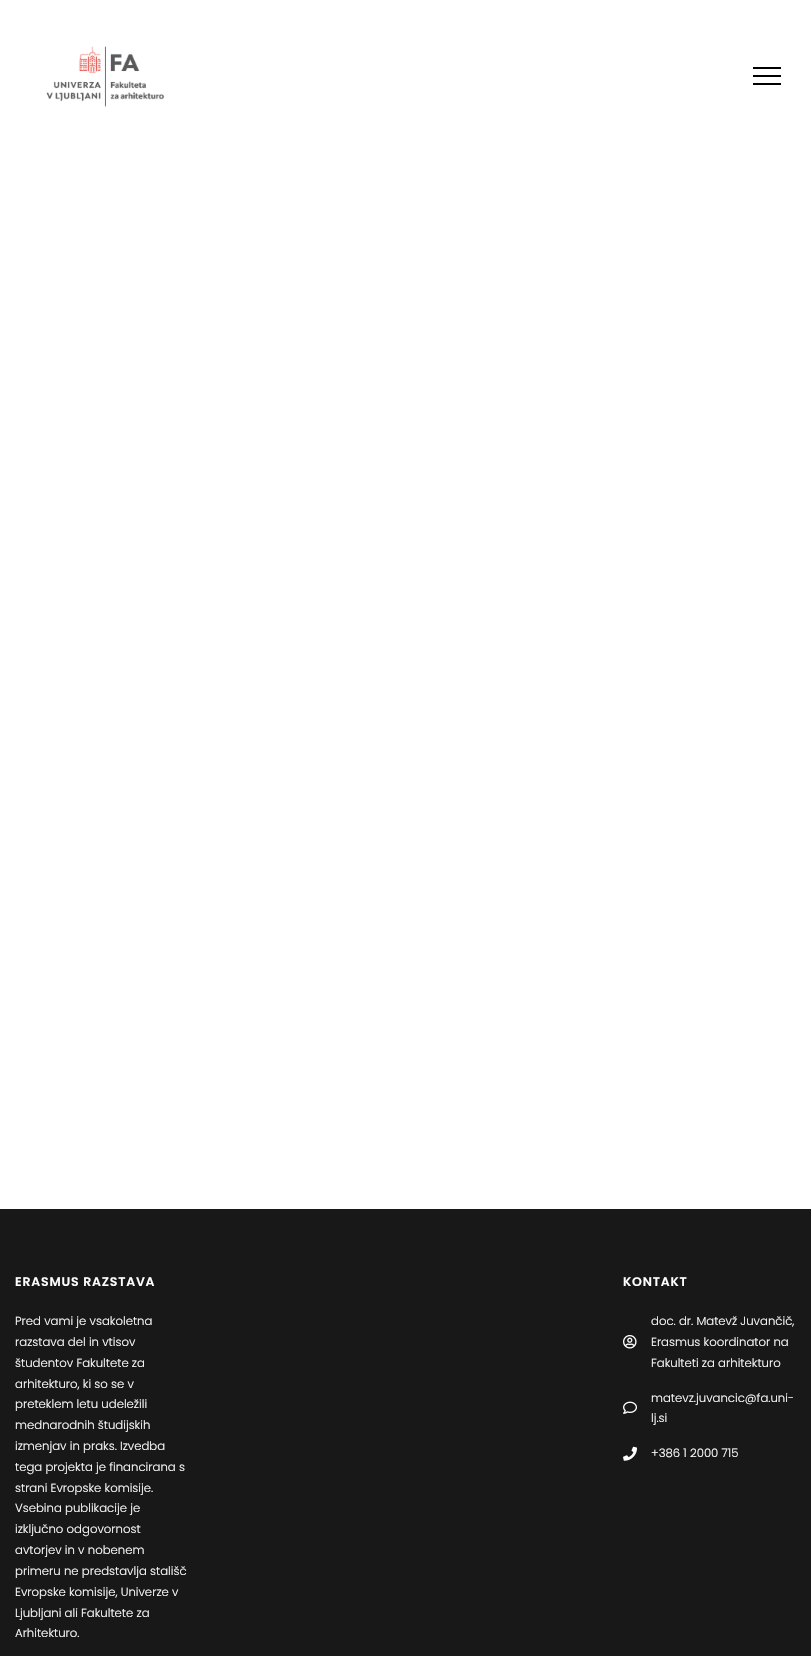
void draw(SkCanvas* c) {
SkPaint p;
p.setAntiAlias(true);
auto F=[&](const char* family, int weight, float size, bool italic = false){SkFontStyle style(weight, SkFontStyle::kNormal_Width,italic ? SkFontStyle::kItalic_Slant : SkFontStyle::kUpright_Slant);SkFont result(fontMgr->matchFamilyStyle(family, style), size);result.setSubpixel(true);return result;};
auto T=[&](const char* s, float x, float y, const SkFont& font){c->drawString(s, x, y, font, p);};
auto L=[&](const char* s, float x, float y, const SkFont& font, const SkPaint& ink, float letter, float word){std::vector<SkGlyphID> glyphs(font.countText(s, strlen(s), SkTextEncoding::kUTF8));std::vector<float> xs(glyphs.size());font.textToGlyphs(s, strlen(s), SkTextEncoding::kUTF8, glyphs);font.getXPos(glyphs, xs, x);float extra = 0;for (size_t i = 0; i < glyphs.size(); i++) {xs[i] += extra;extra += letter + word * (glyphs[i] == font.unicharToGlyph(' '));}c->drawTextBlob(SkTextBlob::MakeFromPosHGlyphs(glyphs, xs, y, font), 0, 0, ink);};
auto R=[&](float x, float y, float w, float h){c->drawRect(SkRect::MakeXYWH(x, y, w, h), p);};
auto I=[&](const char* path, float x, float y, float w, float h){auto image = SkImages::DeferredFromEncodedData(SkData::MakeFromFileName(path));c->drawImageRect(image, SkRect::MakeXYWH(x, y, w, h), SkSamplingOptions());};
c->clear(0xffffffff);
I("1.png",46,46,119,61);
p.setColor(0xff000000);
R(753,67,28,2);
R(753,83,28,2);
R(753,75,28,2);
p.setColor(0xff181818);
R(0,1209,811,447);
auto f1 = F("Poppins",600,12.5);
p.setColor(0xffffffff);
L("ERASMUS RAZSTAVA",15,1286,f1,p,.8,0);
auto f2 = F("Poppins",300,11.7);
T("Pred vami je vsakoletna",15,1325,f2);
T("razstava del in vtisov",15,1346,f2);
T("študentov Fakultete za",15,1367,f2);
T("arhitekturo, ki so se v",15,1388,f2);
T("preteklem letu udeležili",15,1408,f2);
T("mednarodnih študijskih",15,1429,f2);
T("izmenjav in praks. Izvedba",15,1450,f2);
T("tega projekta je financirana s",15,1471,f2);
T("strani Evropske komisije.",15,1492,f2);
T("Vsebina publikacije je",15,1512,f2);
T("izključno odgovornost",15,1533,f2);
T("avtorjev in v nobenem",15,1554,f2);
T("primeru ne predstavlja stališč",15,1575,f2);
T("Evropske komisije, Univerze v",15,1596,f2);
T("Ljubljani ali Fakultete za",15,1617,f2);
T("Arhitekturo.",15,1637,f2);
L("KONTAKT",623,1286,f1,p,.8,0);
I("2.png",623,1335,14,14);
T("doc. dr. Matevž Juvančič,",651,1325,f2);
T("Erasmus koordinator na",651,1346,f2);
T("Fakulteti za arhitekturo",651,1367,f2);
I("3.png",623,1401,14,13);
T("matevz.juvancic@fa.uni-",651,1402,f2);
T("lj.si",651,1422,f2);
I("4.png",623,1446,14,15);
T("+386 1 2000 715",651,1457,f2);
}
